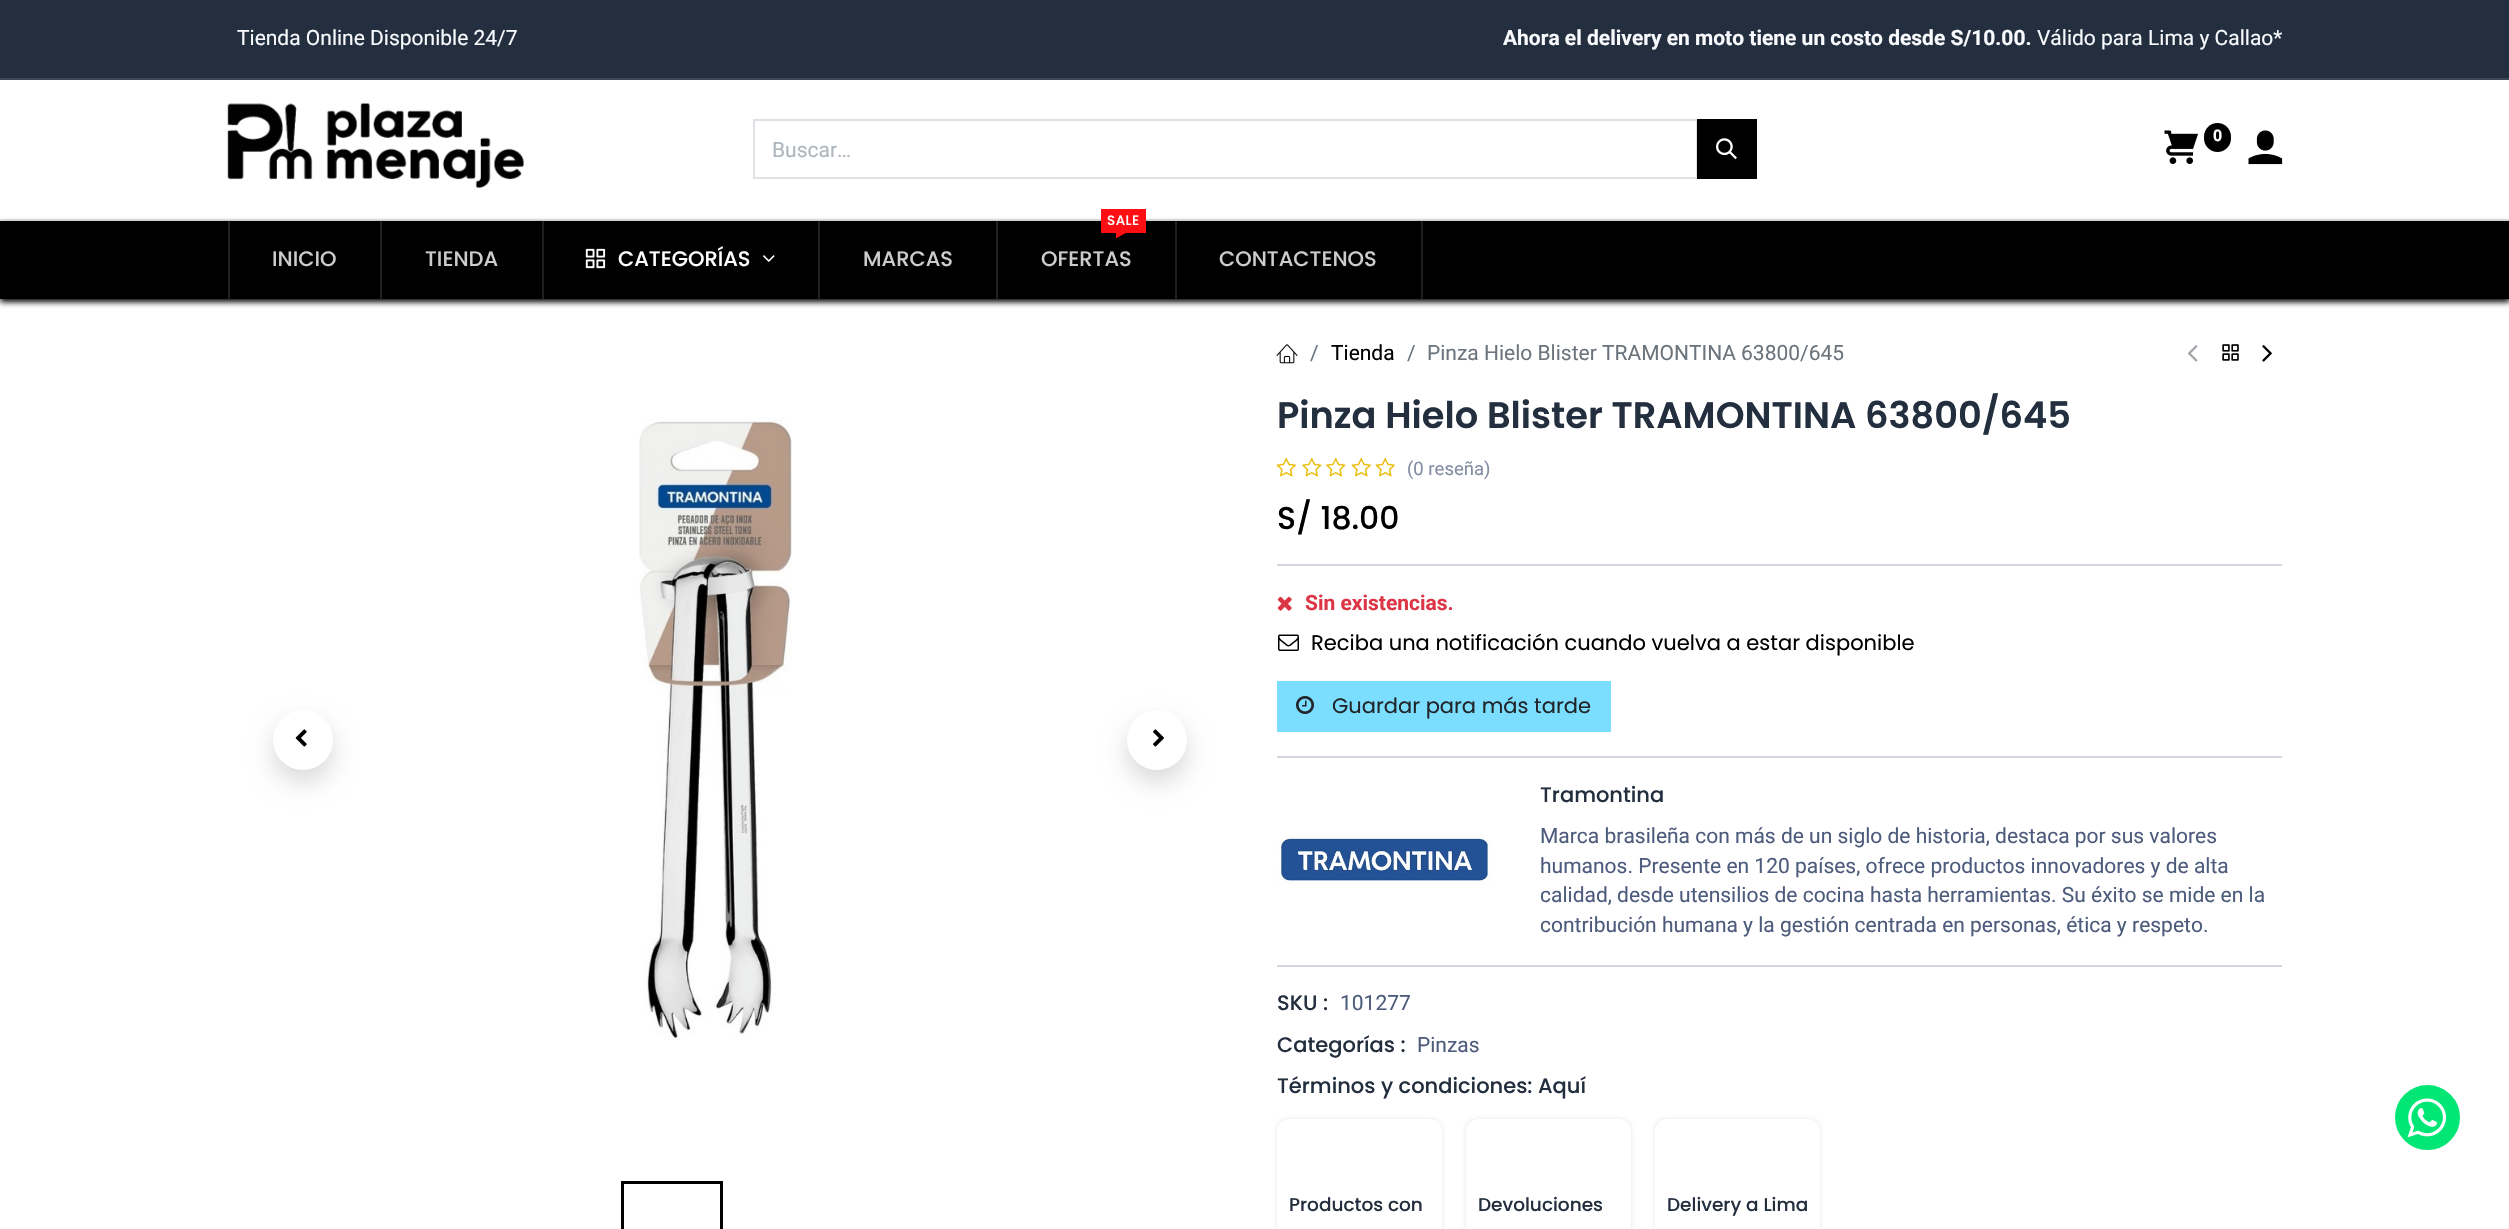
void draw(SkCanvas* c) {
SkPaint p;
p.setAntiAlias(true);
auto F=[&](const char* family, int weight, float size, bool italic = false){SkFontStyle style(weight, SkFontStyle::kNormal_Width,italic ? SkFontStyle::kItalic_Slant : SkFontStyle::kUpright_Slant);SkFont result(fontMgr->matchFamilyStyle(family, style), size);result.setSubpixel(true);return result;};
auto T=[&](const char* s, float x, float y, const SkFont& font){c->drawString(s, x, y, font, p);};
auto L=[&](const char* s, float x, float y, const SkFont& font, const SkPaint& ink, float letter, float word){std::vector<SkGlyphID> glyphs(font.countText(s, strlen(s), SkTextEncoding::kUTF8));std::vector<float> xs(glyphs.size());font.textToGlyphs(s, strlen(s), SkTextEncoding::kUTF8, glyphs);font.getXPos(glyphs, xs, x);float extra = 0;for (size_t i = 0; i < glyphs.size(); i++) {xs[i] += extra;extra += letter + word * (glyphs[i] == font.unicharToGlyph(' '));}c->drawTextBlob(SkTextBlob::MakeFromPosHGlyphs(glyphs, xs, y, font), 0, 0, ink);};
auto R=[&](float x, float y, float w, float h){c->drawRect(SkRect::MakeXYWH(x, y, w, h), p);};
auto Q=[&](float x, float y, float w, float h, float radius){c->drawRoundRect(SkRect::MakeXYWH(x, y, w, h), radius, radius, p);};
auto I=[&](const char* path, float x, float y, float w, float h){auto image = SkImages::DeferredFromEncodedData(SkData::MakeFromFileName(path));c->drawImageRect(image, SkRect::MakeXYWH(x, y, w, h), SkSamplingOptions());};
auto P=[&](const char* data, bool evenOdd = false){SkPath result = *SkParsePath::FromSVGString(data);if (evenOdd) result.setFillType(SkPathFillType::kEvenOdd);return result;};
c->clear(0xffffffff);
p.setColor(0xff232f3e);
R(0,0,2509,78);
p.setColor(0xff3d4855);
R(0,78,2509,2);
auto f1 = F("Roboto",400,21);
p.setColor(0xfff9fafe);
T("Tienda Online Disponible 24/7",237,45,f1);
auto f2 = F("Roboto",700,21);
T("Ahora el delivery en moto tiene un costo desde S/10.00.",1503,45,f2);
T("Válido para Lima y Callao*",2037,45,f1);
p.setColor(0xffeaebef);
R(0,219,2509,2);
I("1.png",227,103,297,85);
I("2.png",2164,130,34,34);
p.setColor(0xff000000);
Q(2204,123,27,29,13.5);
auto f3 = F("Roboto",700,16);
p.setColor(0xffffffff);
T("0",2213,141,f3);
I("3.png",2248,130,35,35);
p.setStroke(true);
p.setStrokeWidth(2);
p.setColor(0xffdee2e6);
c->drawRect(SkRect::MakeXYWH(754,120,943,58),p);
p.setStroke(false);
p.setColor(0xffadb5bd);
T("Buscar…",772,157,f1);
p.setColor(0xff000000);
R(1697,119,60,60);
I("4.png",1716,138,21,22);
p.setMaskFilter(SkMaskFilter::MakeBlur(kNormal_SkBlurStyle, 3));
c->drawRect(SkRect::MakeXYWH(0,224,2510,78),p);
p.setMaskFilter(nullptr);
R(0,221,2509,78);
p.setColor(0xff1f1f1f);
R(228,221,2,78);
auto f4 = F("Poppins",500,21);
p.setColor(0xffcccccc);
T("INICIO",272,266,f4);
p.setColor(0xff1f1f1f);
R(380,221,2,78);
p.setColor(0xffcccccc);
T("TIENDA",425,266,f4);
p.setColor(0xff1f1f1f);
R(542,221,2,78);
I("5.png",585,248,21,21);
p.setColor(0xffffffff);
T("CATEGORÍAS",618,266,f4);
I("6.png",763,255,12,7);
p.setColor(0xff1f1f1f);
R(818,221,2,78);
p.setColor(0xffcccccc);
T("MARCAS",863,266,f4);
p.setColor(0xff1f1f1f);
R(996,221,2,78);
p.setColor(0xffff0e13);
R(1101,209,45,24);
auto f5 = F("Poppins",500,13.5);
p.setColor(0xffffffff);
L("SALE",1107,225,f5,p,.5,0);
p.setColor(0xffff0e13);
c->drawPath(P("M1116 232.5h10.5l-10.5 6z"),p);
p.setColor(0xffcccccc);
T("OFERTAS",1041,266,f4);
p.setColor(0xff1f1f1f);
R(1421,221,2,78);
R(1175,221,2,78);
p.setColor(0xffcccccc);
T("CONTACTENOS",1219,266,f4);
p.setColor(0x26000000);
p.setMaskFilter(SkMaskFilter::MakeBlur(kNormal_SkBlurStyle, 12));
c->drawRoundRect(SkRect::MakeXYWH(273,722,60,60),30,30,p);
p.setMaskFilter(nullptr);
p.setColor(0xffffffff);
c->drawCircle(303,740,30,p);
I("7.png",295,729,12,18);
I("8.png",639,418,153,622);
p.setColor(0x26000000);
p.setMaskFilter(SkMaskFilter::MakeBlur(kNormal_SkBlurStyle, 12));
c->drawRoundRect(SkRect::MakeXYWH(1127,722,60,60),30,30,p);
p.setMaskFilter(nullptr);
p.setColor(0xffffffff);
c->drawCircle(1157,740,30,p);
I("9.png",1153,729,11,18);
p.setStroke(true);
p.setStrokeWidth(3);
p.setColor(0xff000000);
c->drawRect(SkRect::MakeXYWH(622.5,1182.5,99,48),p);
I("10.png",1276,344,22,20);
p.setStroke(false);
p.setColor(0xff6c757d);
T("/",1310,360,f1);
p.setColor(0xff000000);
T("Tienda",1331,360,f1);
p.setColor(0xff6c757d);
T("/",1407,360,f1);
T("Pinza Hielo Blister TRAMONTINA 63800/645",1427,360,f1);
I("11.png",2187,345,11,17);
I("12.png",2222,344,17,17);
I("13.png",2262,345,10,17);
auto f6 = F("Poppins",600,36.75);
p.setColor(0xff232f3e);
T("Pinza Hielo Blister TRAMONTINA 63800/645",1277,428,f6);
I("14.png",1276,457,20,20);
I("15.png",1302,457,20,20);
I("15.png",1326,457,20,20);
I("14.png",1351,457,20,20);
I("14.png",1375,457,20,20);
auto f7 = F("Roboto",400,18.5);
p.setColor(0xff828ca3);
T("(0 reseña)",1407,475,f7);
auto f8 = F("Poppins",500,31.5);
p.setColor(0xff000000);
T("S/ 18.00",1277,529,f8);
p.setColor(0xffd3d6de);
R(1277,564,1005,2);
I("16.png",1277,596,15,15);
p.setColor(0xffdc3545);
T("Sin existencias.",1305,610,f2);
I("17.png",1278,634,21,17);
auto f9 = F("Poppins",400,21);
p.setColor(0xff000000);
T("Reciba una notificación cuando vuelva a estar disponible",1311,650,f9);
p.setColor(0xff7bdeff);
R(1277,681,334,51);
I("18.png",1296,696,18,18);
p.setColor(0xff212529);
T("Guardar para más tarde",1332,713,f9);
p.setColor(0xffd3d6de);
R(1277,756,1005,2);
I("19.png",1276,834,217,50);
p.setColor(0xff232f3e);
T("Tramontina",1540,802,f4);
p.setColor(0xff4d5b7c);
T("Marca brasileña con más de un siglo de historia, destaca por sus valores",1540,843,f1);
T("humanos. Presente en 120 países, ofrece productos innovadores y de alta",1540,873,f1);
T("calidad, desde utensilios de cocina hasta herramientas. Su éxito se mide en la",1540,902,f1);
T("contribución humana y la gestión centrada en personas, ética y respeto.",1540,932,f1);
p.setColor(0xffd3d6de);
R(1277,965,1005,2);
p.setColor(0xff232f3e);
T("SKU :",1277,1010,f4);
p.setColor(0xff4d5b7c);
T("101277",1340,1010,f1);
p.setColor(0xff232f3e);
T("Categorías :",1277,1052,f4);
p.setColor(0xff4d5b7c);
T("Pinzas",1417,1052,f1);
p.setColor(0xff232f3e);
T("Términos y condiciones: Aquí",1277,1093,f4);
c->save();
c->clipPath(P("M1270 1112h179v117h-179zm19 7h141c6.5 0 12 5.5 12 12v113c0 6.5-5.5 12-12 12h-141c-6.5 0-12-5.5-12-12v-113c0-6.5 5.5-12 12-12z",true),true);
p.setColor(0x1a000000);
p.setMaskFilter(SkMaskFilter::MakeBlur(kNormal_SkBlurStyle, 2));
c->drawRoundRect(SkRect::MakeXYWH(1277,1119,165,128),12,12,p);
p.setMaskFilter(nullptr);
c->restore();
auto f10 = F("Poppins",500,18.5);
p.setColor(0xff232f3e);
T("Productos con",1289,1211,f10);
c->save();
c->clipPath(P("M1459 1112h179v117h-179zm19 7h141c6.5 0 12 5.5 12 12v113c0 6.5-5.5 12-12 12h-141c-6.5 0-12-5.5-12-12v-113c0-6.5 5.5-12 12-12z",true),true);
p.setColor(0x1a000000);
p.setMaskFilter(SkMaskFilter::MakeBlur(kNormal_SkBlurStyle, 2));
c->drawRoundRect(SkRect::MakeXYWH(1466,1119,165,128),12,12,p);
p.setMaskFilter(nullptr);
c->restore();
p.setColor(0xff232f3e);
T("Devoluciones",1478,1211,f10);
c->save();
c->clipPath(P("M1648 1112h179v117h-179zm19 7h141c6.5 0 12 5.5 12 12v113c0 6.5-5.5 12-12 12h-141c-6.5 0-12-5.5-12-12v-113c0-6.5 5.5-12 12-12z",true),true);
p.setColor(0x1a000000);
p.setMaskFilter(SkMaskFilter::MakeBlur(kNormal_SkBlurStyle, 2));
c->drawRoundRect(SkRect::MakeXYWH(1655,1119,165,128),12,12,p);
p.setMaskFilter(nullptr);
c->restore();
p.setColor(0xff232f3e);
T("Delivery a Lima",1667,1211,f10);
p.setColor(0xff01e675);
c->drawCircle(2427.5,1117.5,35,p);
p.setStroke(true);
p.setStrokeWidth(5);
p.setColor(0xffffffff);
c->drawCircle(2427.5,1117.5,35,p);
I("20.png",2407,1098,40,40);
}
